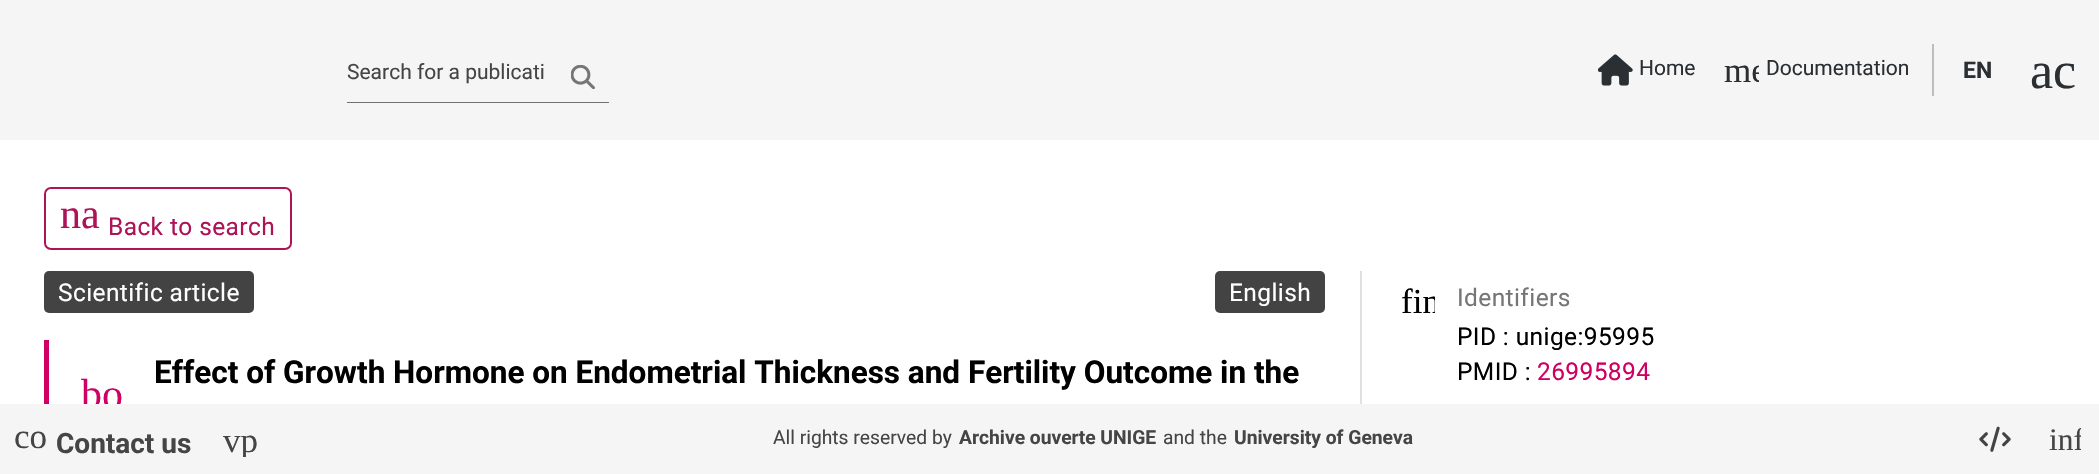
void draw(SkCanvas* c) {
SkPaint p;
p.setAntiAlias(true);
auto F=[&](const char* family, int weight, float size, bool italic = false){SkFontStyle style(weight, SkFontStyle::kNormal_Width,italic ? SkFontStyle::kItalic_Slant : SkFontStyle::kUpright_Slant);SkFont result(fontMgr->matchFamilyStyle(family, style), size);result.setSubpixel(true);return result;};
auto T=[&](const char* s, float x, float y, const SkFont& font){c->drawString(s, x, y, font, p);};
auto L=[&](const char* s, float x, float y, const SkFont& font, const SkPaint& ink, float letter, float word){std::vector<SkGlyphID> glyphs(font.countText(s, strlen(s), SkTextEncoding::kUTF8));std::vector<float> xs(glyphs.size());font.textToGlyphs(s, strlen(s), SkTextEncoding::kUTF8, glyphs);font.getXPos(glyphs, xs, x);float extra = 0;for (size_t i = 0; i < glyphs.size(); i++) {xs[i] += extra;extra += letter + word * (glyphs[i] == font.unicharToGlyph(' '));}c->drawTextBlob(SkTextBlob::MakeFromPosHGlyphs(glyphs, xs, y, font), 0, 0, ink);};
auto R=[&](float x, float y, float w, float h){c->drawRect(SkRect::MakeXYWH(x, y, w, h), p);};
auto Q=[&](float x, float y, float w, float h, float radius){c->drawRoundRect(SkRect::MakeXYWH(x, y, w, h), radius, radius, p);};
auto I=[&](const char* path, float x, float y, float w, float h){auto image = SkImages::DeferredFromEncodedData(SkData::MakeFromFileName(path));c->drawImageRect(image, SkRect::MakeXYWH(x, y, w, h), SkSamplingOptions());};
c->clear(0xffffffff);
p.setColor(0xfff5f5f5);
R(0,0,2099,140);
auto f1 = F("Roboto",400,21);
p.setColor(0xff454545);
T("Search for a publicati",347,79,f1);
I("1.png",571,65,24,24);
p.setColor(0xff717171);
R(347,102,262,1);
I("2.png",1598,54,35,32);
p.setColor(0xff292f33);
T("Home",1639,75,f1);
c->save();
c->clipRect(SkRect::MakeXYWH(1724,53,35,35));
auto f2 = F("Liberation Serif",400,35);
T("me",1724,82,f2);
c->restore();
T("Documentation",1766,75,f1);
p.setColor(0xffbdbdbd);
R(1932,44,2,52);
auto f3 = F("Roboto",700,23);
p.setColor(0xff292f33);
T("EN",1963,78,f3);
auto f4 = F("Liberation Serif",400,52);
T("ac",2030,88,f4);
p.setStroke(true);
p.setStrokeWidth(2);
p.setColor(0xffad1457);
c->drawRoundRect(SkRect::MakeXYWH(45,188,246,61),6,6,p);
auto f5 = F("Liberation Serif",400,42);
p.setStroke(false);
T("na",60,228,f5);
auto f6 = F("Roboto",400,24.5);
L("Back to search",108,235,f6,p,.4,0);
p.setColor(0xffe0e0e0);
R(1360,271,2,133);
p.setColor(0xff434343);
Q(44,271,210,42,5);
p.setColor(0xffffffff);
L("Scientific article",58,301,f6,p,.4,0);
p.setColor(0xff434343);
Q(1215,271,110,42,5);
p.setColor(0xffffffff);
L("English",1229,301,f6,p,.4,0);
p.setColor(0xffcf0063);
R(44,340,5,64);
T("bo",81,408,f5);
auto f7 = F("Roboto",700,31.5);
p.setColor(0xff000000);
T("Effect of Growth Hormone on Endometrial Thickness and Fertility Outcome in the",154,383,f7);
c->save();
c->clipRect(SkRect::MakeXYWH(1400,284,35,35));
T("fin",1401,313,f2);
c->restore();
p.setColor(0xff767676);
L("Identifiers",1457,306,f6,p,.4,0);
p.setColor(0xff000000);
L("PID : unige:95995",1457,345,f6,p,.4,0);
L("PMID :",1457,380,f6,p,.4,0);
p.setColor(0xffcf0063);
L("26995894",1537,380,f6,p,.4,0);
p.setColor(0xfff5f5f5);
R(0,404,2099,70);
p.setColor(0xff454545);
T("co",14,448,f2);
auto f8 = F("Roboto",700,28);
T("Contact us",56,453,f8);
c->save();
c->clipRect(SkRect::MakeXYWH(222,422,35,35));
T("vp",223,452,f2);
c->restore();
auto f9 = F("Roboto",400,19.25);
T("All rights reserved by",773,444,f9);
auto f10 = F("Roboto",700,19.25);
T("Archive ouverte UNIGE",959,444,f10);
T("and the",1163,444,f9);
T("University of Geneva",1234,444,f10);
I("3.png",1979,426,32,26);
c->save();
c->clipRect(SkRect::MakeXYWH(2049,424,32,31));
auto f11 = F("Liberation Serif",400,31.5);
T("inf",2049,450,f11);
c->restore();
}
